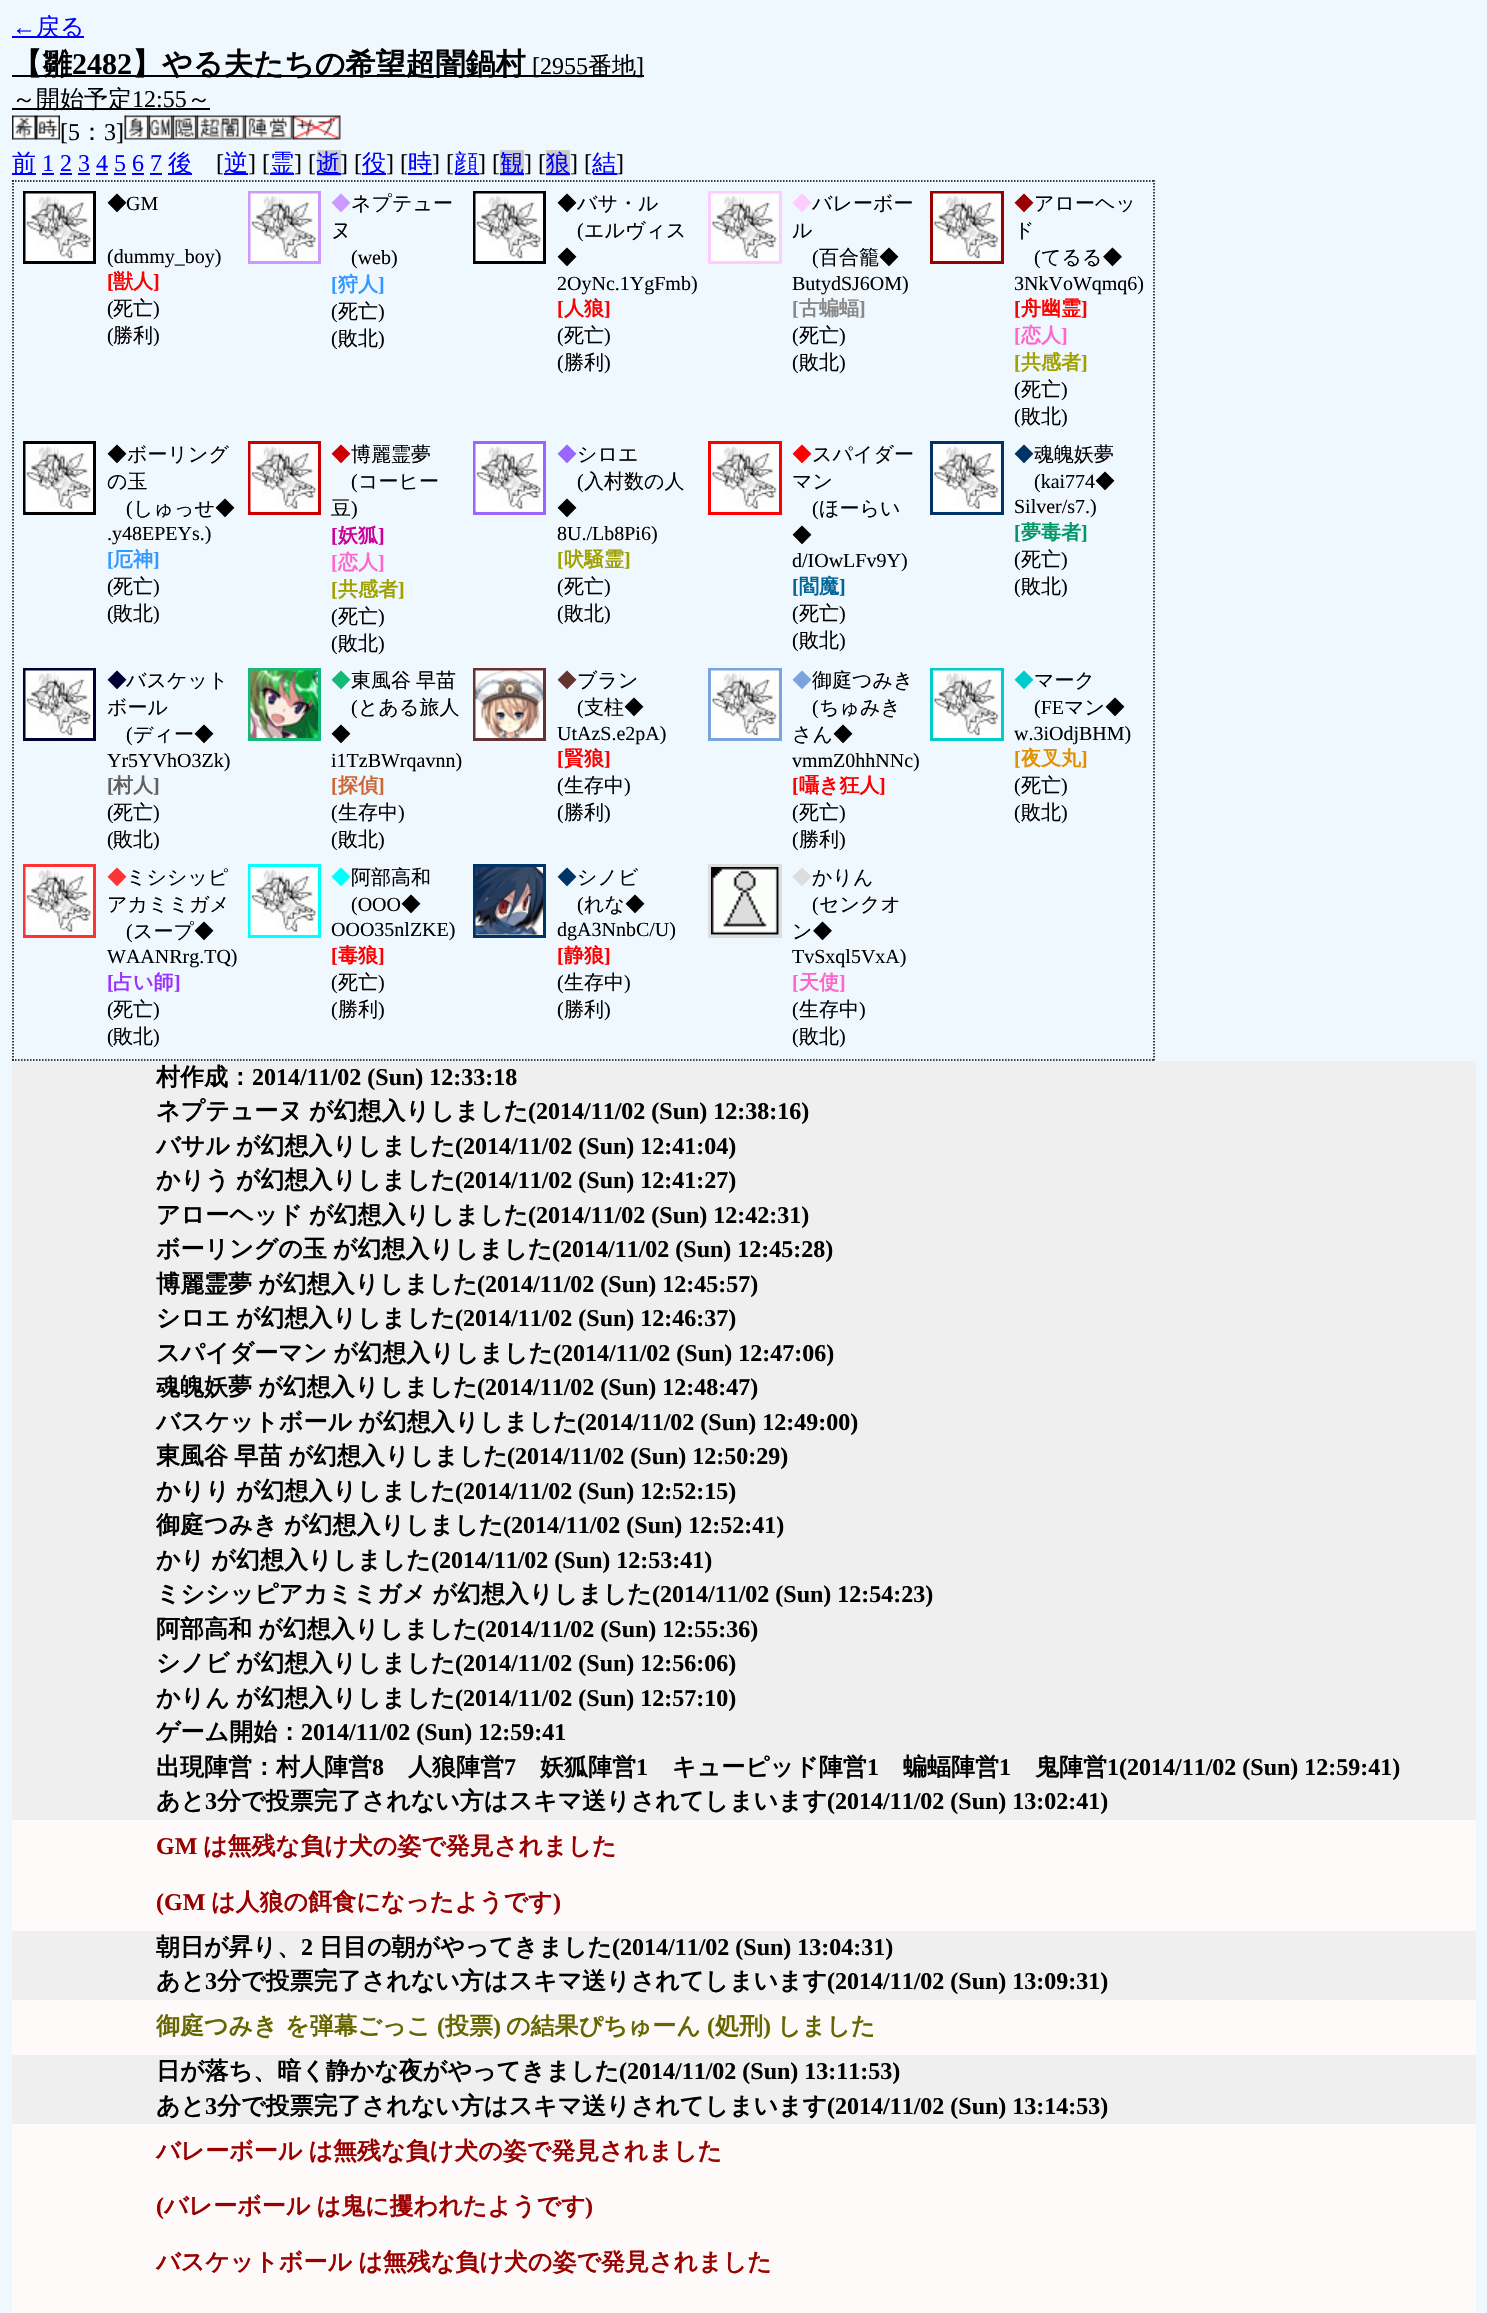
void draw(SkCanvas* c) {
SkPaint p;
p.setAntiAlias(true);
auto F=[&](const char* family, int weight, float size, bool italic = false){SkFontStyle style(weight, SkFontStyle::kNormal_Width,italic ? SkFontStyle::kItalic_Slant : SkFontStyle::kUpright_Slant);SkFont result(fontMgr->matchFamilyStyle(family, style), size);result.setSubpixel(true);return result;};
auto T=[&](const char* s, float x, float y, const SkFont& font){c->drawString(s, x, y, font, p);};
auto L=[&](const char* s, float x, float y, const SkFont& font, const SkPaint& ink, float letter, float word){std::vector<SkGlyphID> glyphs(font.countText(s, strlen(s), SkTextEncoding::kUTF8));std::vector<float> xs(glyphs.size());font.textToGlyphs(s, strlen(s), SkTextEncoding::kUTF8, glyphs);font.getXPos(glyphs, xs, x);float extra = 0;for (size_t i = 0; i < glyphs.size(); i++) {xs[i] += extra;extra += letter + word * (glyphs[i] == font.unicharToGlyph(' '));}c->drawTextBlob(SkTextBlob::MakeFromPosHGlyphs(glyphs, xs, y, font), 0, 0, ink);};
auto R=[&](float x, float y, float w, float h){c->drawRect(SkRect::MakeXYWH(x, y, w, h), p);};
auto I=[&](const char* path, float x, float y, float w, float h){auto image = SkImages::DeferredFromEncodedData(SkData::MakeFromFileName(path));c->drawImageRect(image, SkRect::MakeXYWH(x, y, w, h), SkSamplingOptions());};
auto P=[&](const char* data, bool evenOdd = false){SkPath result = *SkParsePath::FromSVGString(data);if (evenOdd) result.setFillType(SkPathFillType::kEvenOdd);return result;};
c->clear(0xfff0f8ff);
auto f1 = F("Liberation Serif",400,24);
p.setColor(0xff0000ff);
T("←",12,35,f1);
R(12,36,72,2);
auto f2 = F("WenQuanYi Zen Hei",500,24);
T("戻る",36,35,f2);
p.setColor(0xff000000);
R(12,75,632,2);
auto f3 = F("WenQuanYi Zen Hei",700,30);
T("【雛",12,74,f3);
auto f4 = F("Liberation Serif",700,30);
T("2482",72,74,f4);
T("】やる夫たちの希望超闇鍋村",132,74,f3);
T("[2955",532,74,f1);
T("番地",588,74,f2);
T("]",636,74,f1);
R(12,108,198,2);
T("～開始予定",12,107,f2);
T("12:55",132,107,f1);
T("～",187,107,f2);
I("1.png",12,115,24,25);
I("2.png",36,115,24,25);
T("[5",60,140,f1);
T("：",80,140,f2);
T("3]",104,140,f1);
I("3.png",124,115,25,25);
I("4.png",148,115,25,25);
I("5.png",172,115,25,25);
I("6.png",196,115,49,25);
I("7.png",244,115,49,25);
I("8.png",292,115,49,25);
p.setColor(0xff0000ff);
R(12,173,24,2);
T("前",12,171,f2);
T("1 2 3 4 5 6 7",42,171,f1);
R(42,173,12,2);
R(168,173,24,2);
T("後",168,171,f2);
p.setColor(0xff000000);
T("[",216,171,f1);
p.setColor(0xff0000ff);
R(224,173,24,2);
T("逆",224,171,f2);
p.setColor(0xff000000);
T("] [",248,171,f1);
p.setColor(0xff0000ff);
R(270,173,24,2);
T("霊",270,171,f2);
p.setColor(0xff000000);
T("] [",294,171,f1);
p.setColor(0xffcccccc);
R(317,150,24,26);
p.setColor(0xff0000ff);
R(317,173,24,2);
T("逝",316,171,f2);
p.setColor(0xff000000);
T("] [",340,171,f1);
p.setColor(0xff0000ff);
R(362,173,24,2);
T("役",362,171,f2);
p.setColor(0xff000000);
T("] [",386,171,f1);
p.setColor(0xff0000ff);
R(408,173,24,2);
T("時",408,171,f2);
p.setColor(0xff000000);
T("] [",432,171,f1);
p.setColor(0xff0000ff);
R(455,173,24,2);
T("顔",454,171,f2);
p.setColor(0xff000000);
T("] [",478,171,f1);
p.setColor(0xffcccccc);
R(500,150,24,26);
p.setColor(0xff0000ff);
R(500,173,24,2);
T("観",500,171,f2);
p.setColor(0xff000000);
T("] [",524,171,f1);
p.setColor(0xffcccccc);
R(546,150,24,26);
p.setColor(0xff0000ff);
R(546,173,24,2);
T("狼",546,171,f2);
p.setColor(0xff000000);
T("] [",570,171,f1);
p.setColor(0xff0000ff);
R(593,173,24,2);
T("結",592,171,f2);
p.setColor(0xff000000);
T("]",616,171,f1);
p.setColor(0xff0000ff);
R(60,173,12,2);
R(78,173,12,2);
R(96,173,12,2);
R(114,173,12,2);
R(132,173,12,2);
R(150,173,12,2);
p.setStroke(true);
p.setStrokeWidth(1.5);
p.setColor(0xff000000);
p.setPathEffect(SkDashPathEffect::Make({{1.5f,1.5f}}, 0));
c->drawPath(P("M12 181h1143"),p);
p.setPathEffect(nullptr);
p.setPathEffect(SkDashPathEffect::Make({{1.5f,1.5f}}, 0));
c->drawPath(P("M1154 180v880.5"),p);
p.setPathEffect(nullptr);
p.setPathEffect(SkDashPathEffect::Make({{1.5f,1.5f}}, 0));
c->drawPath(P("M12 1060h1143"),p);
p.setPathEffect(nullptr);
p.setPathEffect(SkDashPathEffect::Make({{1.5f,1.5f}}, 0));
c->drawPath(P("M13 180v880.5"),p);
p.setPathEffect(nullptr);
p.setStrokeWidth(3);
c->drawRect(SkRect::MakeXYWH(24.5,192.5,70,70),p);
I("9.png",25,193,68,68);
auto f5 = F("WenQuanYi Zen Hei",500,20);
p.setStroke(false);
T("◆",107,210,f5);
auto f6 = F("Liberation Serif",400,20);
T("GM",126,210,f6);
T("(dummy_boy)",107,263,f6);
auto f7 = F("Liberation Serif",700,20);
p.setColor(0xffff0000);
T("[",107,288,f7);
auto f8 = F("WenQuanYi Zen Hei",700,20);
T("獣人",113,288,f8);
T("]",153,288,f7);
p.setColor(0xff000000);
T("(",107,315,f6);
T("死亡",113,315,f5);
T(")",153,315,f6);
T("(",107,342,f6);
T("勝利",113,342,f5);
T(")",153,342,f6);
p.setStroke(true);
p.setColor(0xffcc99ff);
c->drawRect(SkRect::MakeXYWH(249.5,192.5,70,70),p);
I("10.png",250,193,68,68);
p.setStroke(false);
T("◆",331,210,f5);
p.setColor(0xff000000);
T("ネプテュー",351,210,f5);
T("ヌ",331,237,f5);
T("(web)",351,264,f6);
p.setColor(0xff3399ff);
T("[",331,291,f7);
T("狩人",338,291,f8);
T("]",378,291,f7);
p.setColor(0xff000000);
T("(",331,318,f6);
T("死亡",338,318,f5);
T(")",378,318,f6);
T("(",331,345,f6);
T("敗北",338,345,f5);
T(")",378,345,f6);
p.setStroke(true);
c->drawRect(SkRect::MakeXYWH(474.5,192.5,70,70),p);
I("9.png",475,193,68,68);
p.setStroke(false);
T("◆バサ・ル",557,210,f5);
T("(",577,237,f6);
T("エルヴィス",584,237,f5);
T("◆",557,264,f5);
T("2OyNc.1YgFmb)",557,290,f6);
p.setColor(0xffff0000);
T("[",557,315,f7);
T("人狼",564,315,f8);
T("]",604,315,f7);
p.setColor(0xff000000);
T("(",557,342,f6);
T("死亡",564,342,f5);
T(")",604,342,f6);
T("(",557,369,f6);
T("勝利",564,369,f5);
T(")",604,369,f6);
p.setStroke(true);
p.setColor(0xffffccff);
c->drawRect(SkRect::MakeXYWH(709.5,192.5,71,70),p);
I("11.png",711,193,68,68);
p.setStroke(false);
T("◆",792,210,f5);
p.setColor(0xff000000);
T("バレーボー",812,210,f5);
T("ル",792,237,f5);
T("(",812,264,f6);
T("百合籠◆",819,264,f5);
T("ButydSJ6OM)",792,290,f6);
p.setColor(0xff888888);
T("[",792,315,f7);
T("古蝙蝠",799,315,f8);
T("]",859,315,f7);
p.setColor(0xff000000);
T("(",792,342,f6);
T("死亡",799,342,f5);
T(")",839,342,f6);
T("(",792,369,f6);
T("敗北",799,369,f5);
T(")",839,369,f6);
p.setStroke(true);
p.setColor(0xff990000);
c->drawRect(SkRect::MakeXYWH(931.5,192.5,71,70),p);
I("12.png",933,193,68,68);
p.setStroke(false);
T("◆",1014,210,f5);
p.setColor(0xff000000);
T("アローヘッ",1034,210,f5);
T("ド",1014,237,f5);
T("(",1034,264,f6);
T("てるる◆",1041,264,f5);
T("3NkVoWqmq6)",1014,290,f6);
p.setColor(0xffff0000);
T("[",1014,315,f7);
T("舟幽霊",1021,315,f8);
T("]",1081,315,f7);
p.setColor(0xffff66cc);
T("[",1014,342,f7);
T("恋人",1021,342,f8);
T("]",1061,342,f7);
p.setColor(0xffa0a000);
T("[",1014,369,f7);
T("共感者",1021,369,f8);
T("]",1081,369,f7);
p.setColor(0xff000000);
T("(",1014,396,f6);
T("死亡",1021,396,f5);
T(")",1061,396,f6);
T("(",1014,423,f6);
T("敗北",1021,423,f5);
T(")",1061,423,f6);
p.setStroke(true);
c->drawRect(SkRect::MakeXYWH(24.5,442.5,70,71),p);
I("13.png",25,444,68,68);
p.setStroke(false);
T("◆ボーリング",107,461,f5);
T("の玉",107,488,f5);
T("(",126,515,f6);
T("しゅっせ◆",133,515,f5);
T(".y48EPEYs.)",107,540,f6);
p.setColor(0xff3399ff);
T("[",107,566,f7);
T("厄神",113,566,f8);
T("]",153,566,f7);
p.setColor(0xff000000);
T("(",107,593,f6);
T("死亡",113,593,f5);
T(")",153,593,f6);
T("(",107,620,f6);
T("敗北",113,620,f5);
T(")",153,620,f6);
p.setStroke(true);
p.setColor(0xffcc0000);
c->drawRect(SkRect::MakeXYWH(249.5,442.5,70,71),p);
I("14.png",250,444,68,68);
p.setStroke(false);
T("◆",331,461,f5);
p.setColor(0xff000000);
T("博麗霊夢",351,461,f5);
T("(",351,488,f6);
T("コーヒー",358,488,f5);
T("豆",331,515,f5);
T(")",351,515,f6);
p.setColor(0xffcc0099);
T("[",331,542,f7);
T("妖狐",338,542,f8);
T("]",378,542,f7);
p.setColor(0xffff66cc);
T("[",331,569,f7);
T("恋人",338,569,f8);
T("]",378,569,f7);
p.setColor(0xffa0a000);
T("[",331,596,f7);
T("共感者",338,596,f8);
T("]",398,596,f7);
p.setColor(0xff000000);
T("(",331,623,f6);
T("死亡",338,623,f5);
T(")",378,623,f6);
T("(",331,650,f6);
T("敗北",338,650,f5);
T(")",378,650,f6);
p.setStroke(true);
p.setColor(0xff9966ff);
c->drawRect(SkRect::MakeXYWH(474.5,442.5,70,71),p);
I("15.png",475,444,68,68);
p.setStroke(false);
T("◆",557,461,f5);
p.setColor(0xff000000);
T("シロエ",577,461,f5);
T("(",577,488,f6);
T("入村数の人",584,488,f5);
T("◆",557,515,f5);
T("8U./Lb8Pi6)",557,540,f6);
p.setColor(0xffa0a000);
T("[",557,566,f7);
T("吠騒霊",564,566,f8);
T("]",624,566,f7);
p.setColor(0xff000000);
T("(",557,593,f6);
T("死亡",564,593,f5);
T(")",604,593,f6);
T("(",557,620,f6);
T("敗北",564,620,f5);
T(")",604,620,f6);
p.setStroke(true);
p.setColor(0xffff0000);
c->drawRect(SkRect::MakeXYWH(709.5,442.5,71,71),p);
I("16.png",711,444,68,68);
p.setStroke(false);
T("◆",792,461,f5);
p.setColor(0xff000000);
T("スパイダー",812,461,f5);
T("マン",792,488,f5);
T("(",812,515,f6);
T("ほーらい",819,515,f5);
T("◆",792,542,f5);
T("d/IOwLFv9Y)",792,567,f6);
p.setColor(0xff006699);
T("[",792,593,f7);
T("閻魔",799,593,f8);
T("]",839,593,f7);
p.setColor(0xff000000);
T("(",792,620,f6);
T("死亡",799,620,f5);
T(")",839,620,f6);
T("(",792,647,f6);
T("敗北",799,647,f5);
T(")",839,647,f6);
p.setStroke(true);
p.setColor(0xff003366);
c->drawRect(SkRect::MakeXYWH(931.5,442.5,71,71),p);
I("17.png",933,444,68,68);
p.setStroke(false);
T("◆",1014,461,f5);
p.setColor(0xff000000);
T("魂魄妖夢",1034,461,f5);
T("(kai774",1034,488,f6);
T("◆",1095,488,f5);
T("Silver/s7.)",1014,513,f6);
p.setColor(0xff009966);
T("[",1014,539,f7);
T("夢毒者",1021,539,f8);
T("]",1081,539,f7);
p.setColor(0xff000000);
T("(",1014,566,f6);
T("死亡",1021,566,f5);
T(")",1061,566,f6);
T("(",1014,593,f6);
T("敗北",1021,593,f5);
T(")",1061,593,f6);
p.setStroke(true);
p.setColor(0xff000033);
c->drawRect(SkRect::MakeXYWH(24.5,669.5,70,70),p);
I("18.png",25,670,68,68);
p.setStroke(false);
T("◆",107,687,f5);
p.setColor(0xff000000);
T("バスケット",126,687,f5);
T("ボール",107,714,f5);
T("(",126,741,f6);
T("ディー◆",133,741,f5);
T("Yr5YVhO3Zk)",107,767,f6);
p.setColor(0xff606060);
T("[",107,792,f7);
T("村人",113,792,f8);
T("]",153,792,f7);
p.setColor(0xff000000);
T("(",107,819,f6);
T("死亡",113,819,f5);
T(")",153,819,f6);
T("(",107,846,f6);
T("敗北",113,846,f5);
T(")",153,846,f6);
p.setStroke(true);
p.setColor(0xff14b975);
c->drawRect(SkRect::MakeXYWH(249.5,669.5,70,70),p);
I("19.png",250,670,68,68);
p.setStroke(false);
T("◆",331,687,f5);
p.setColor(0xff000000);
L("東風谷 早苗",351,687,f5,p,0,-1);
T("(",351,714,f6);
T("とある旅人",358,714,f5);
T("◆",331,741,f5);
T("i1TzBWrqavnn)",331,767,f6);
p.setColor(0xffcc6633);
T("[",331,792,f7);
T("探偵",338,792,f8);
T("]",378,792,f7);
p.setColor(0xff000000);
T("(",331,819,f6);
T("生存中",338,819,f5);
T(")",398,819,f6);
T("(",331,846,f6);
T("敗北",338,846,f5);
T(")",378,846,f6);
p.setStroke(true);
p.setColor(0xff663333);
c->drawRect(SkRect::MakeXYWH(474.5,669.5,70,70),p);
I("20.png",475,670,68,68);
p.setStroke(false);
T("◆",557,687,f5);
p.setColor(0xff000000);
T("ブラン",577,687,f5);
T("(",577,714,f6);
T("支柱◆",584,714,f5);
T("UtAzS.e2pA)",557,740,f6);
p.setColor(0xffff0000);
T("[",557,765,f7);
T("賢狼",564,765,f8);
T("]",604,765,f7);
p.setColor(0xff000000);
T("(",557,792,f6);
T("生存中",564,792,f5);
T(")",624,792,f6);
T("(",557,819,f6);
T("勝利",564,819,f5);
T(")",604,819,f6);
p.setStroke(true);
p.setColor(0xff7ba3de);
c->drawRect(SkRect::MakeXYWH(709.5,669.5,71,70),p);
I("21.png",711,670,68,68);
p.setStroke(false);
T("◆",792,687,f5);
p.setColor(0xff000000);
T("御庭つみき",812,687,f5);
T("(",812,714,f6);
T("ちゅみき",819,714,f5);
T("さん◆",792,741,f5);
T("vmmZ0hhNNc)",792,767,f6);
p.setColor(0xffff0000);
T("[",792,792,f7);
T("囁き狂人",799,792,f8);
T("]",879,792,f7);
p.setColor(0xff000000);
T("(",792,819,f6);
T("死亡",799,819,f5);
T(")",839,819,f6);
T("(",792,846,f6);
T("勝利",799,846,f5);
T(")",839,846,f6);
p.setStroke(true);
p.setColor(0xff00cccc);
c->drawRect(SkRect::MakeXYWH(931.5,669.5,71,70),p);
I("22.png",933,670,68,68);
p.setStroke(false);
T("◆",1014,687,f5);
p.setColor(0xff000000);
T("マーク",1034,687,f5);
T("(FE",1034,714,f6);
T("マン◆",1064,714,f5);
T("w.3iOdjBHM)",1014,740,f6);
p.setColor(0xffe09000);
T("[",1014,765,f7);
T("夜叉丸",1021,765,f8);
T("]",1081,765,f7);
p.setColor(0xff000000);
T("(",1014,792,f6);
T("死亡",1021,792,f5);
T(")",1061,792,f6);
T("(",1014,819,f6);
T("敗北",1021,819,f5);
T(")",1061,819,f6);
p.setStroke(true);
p.setColor(0xffff3333);
c->drawRect(SkRect::MakeXYWH(24.5,865.5,70,71),p);
I("23.png",25,867,68,68);
p.setStroke(false);
T("◆",107,884,f5);
p.setColor(0xff000000);
T("ミシシッピ",126,884,f5);
T("アカミミガメ",107,911,f5);
T("(",126,938,f6);
T("スープ◆",133,938,f5);
T("WAANRrg.TQ)",107,963,f6);
p.setColor(0xff9933ff);
T("[",107,989,f7);
T("占い師",113,989,f8);
T("]",174,989,f7);
p.setColor(0xff000000);
T("(",107,1016,f6);
T("死亡",113,1016,f5);
T(")",153,1016,f6);
T("(",107,1043,f6);
T("敗北",113,1043,f5);
T(")",153,1043,f6);
p.setStroke(true);
p.setColor(0xff00ffff);
c->drawRect(SkRect::MakeXYWH(249.5,865.5,70,71),p);
I("24.png",250,867,68,68);
p.setStroke(false);
T("◆",331,884,f5);
p.setColor(0xff000000);
T("阿部高和",351,884,f5);
T("(OOO",351,911,f6);
T("◆",401,911,f5);
T("OOO35nlZKE)",331,936,f6);
p.setColor(0xffff0000);
T("[",331,962,f7);
T("毒狼",338,962,f8);
T("]",378,962,f7);
p.setColor(0xff000000);
T("(",331,989,f6);
T("死亡",338,989,f5);
T(")",378,989,f6);
T("(",331,1016,f6);
T("勝利",338,1016,f5);
T(")",378,1016,f6);
p.setStroke(true);
p.setColor(0xff003366);
c->drawRect(SkRect::MakeXYWH(474.5,865.5,70,71),p);
I("25.png",475,867,68,68);
p.setStroke(false);
T("◆",557,884,f5);
p.setColor(0xff000000);
T("シノビ",577,884,f5);
T("(",577,911,f6);
T("れな◆",584,911,f5);
T("dgA3NnbC/U)",557,936,f6);
p.setColor(0xffff0000);
T("[",557,962,f7);
T("静狼",564,962,f8);
T("]",604,962,f7);
p.setColor(0xff000000);
T("(",557,989,f6);
T("生存中",564,989,f5);
T(")",624,989,f6);
T("(",557,1016,f6);
T("勝利",564,1016,f5);
T(")",604,1016,f6);
p.setStroke(true);
p.setColor(0xffdddddd);
c->drawRect(SkRect::MakeXYWH(709.5,865.5,71,71),p);
I("26.png",711,867,68,68);
p.setStroke(false);
T("◆",792,884,f5);
p.setColor(0xff000000);
T("かりん",812,884,f5);
T("(",812,911,f6);
T("センクオ",819,911,f5);
T("ン◆",792,938,f5);
T("TvSxql5VxA)",792,963,f6);
p.setColor(0xffff66cc);
T("[",792,989,f7);
T("天使",799,989,f8);
T("]",839,989,f7);
p.setColor(0xff000000);
T("(",792,1016,f6);
T("生存中",799,1016,f5);
T(")",859,1016,f6);
T("(",792,1043,f6);
T("敗北",799,1043,f5);
T(")",839,1043,f6);
p.setColor(0xffefefef);
R(12,1061,1464,759);
auto f9 = F("WenQuanYi Zen Hei",700,24);
p.setColor(0xff000000);
T("村作成：",156,1085,f9);
auto f10 = F("Liberation Serif",700,24);
T("2014/11/02 (Sun) 12:33:18",252,1085,f10);
L("ネプテューヌ が幻想入りしました",156,1119,f9,p,0,-1);
T("(2014/11/02 (Sun) 12:38:16)",528,1119,f10);
L("バサル が幻想入りしました",156,1154,f9,p,0,-1);
T("(2014/11/02 (Sun) 12:41:04)",455,1154,f10);
L("かりう が幻想入りしました",156,1188,f9,p,0,-1);
T("(2014/11/02 (Sun) 12:41:27)",455,1188,f10);
L("アローヘッド が幻想入りしました",156,1223,f9,p,0,-1);
T("(2014/11/02 (Sun) 12:42:31)",528,1223,f10);
L("ボーリングの玉 が幻想入りしました",156,1257,f9,p,0,-1);
T("(2014/11/02 (Sun) 12:45:28)",552,1257,f10);
L("博麗霊夢 が幻想入りしました",156,1292,f9,p,0,-1);
T("(2014/11/02 (Sun) 12:45:57)",477,1292,f10);
L("シロエ が幻想入りしました",156,1326,f9,p,0,-1);
T("(2014/11/02 (Sun) 12:46:37)",455,1326,f10);
L("スパイダーマン が幻想入りしました",156,1361,f9,p,0,-1);
T("(2014/11/02 (Sun) 12:47:06)",553,1361,f10);
L("魂魄妖夢 が幻想入りしました",156,1395,f9,p,0,-1);
T("(2014/11/02 (Sun) 12:48:47)",477,1395,f10);
L("バスケットボール が幻想入りしました",156,1430,f9,p,0,-1);
T("(2014/11/02 (Sun) 12:49:00)",577,1430,f10);
L("東風谷 早苗 が幻想入りしました",156,1464,f9,p,0,-1);
T("(2014/11/02 (Sun) 12:50:29)",507,1464,f10);
L("かりり が幻想入りしました",156,1499,f9,p,0,-1);
T("(2014/11/02 (Sun) 12:52:15)",455,1499,f10);
L("御庭つみき が幻想入りしました",156,1533,f9,p,0,-1);
T("(2014/11/02 (Sun) 12:52:41)",503,1533,f10);
L("かり が幻想入りしました",156,1568,f9,p,0,-1);
T("(2014/11/02 (Sun) 12:53:41)",431,1568,f10);
L("ミシシッピアカミミガメ が幻想入りしました",156,1602,f9,p,0,-1);
T("(2014/11/02 (Sun) 12:54:23)",652,1602,f10);
L("阿部高和 が幻想入りしました",156,1637,f9,p,0,-1);
T("(2014/11/02 (Sun) 12:55:36)",477,1637,f10);
L("シノビ が幻想入りしました",156,1671,f9,p,0,-1);
T("(2014/11/02 (Sun) 12:56:06)",455,1671,f10);
L("かりん が幻想入りしました",156,1706,f9,p,0,-1);
T("(2014/11/02 (Sun) 12:57:10)",455,1706,f10);
T("ゲーム開始：",156,1740,f9);
T("2014/11/02 (Sun) 12:59:41",301,1740,f10);
T("出現陣営：村人陣営",156,1775,f9);
T("8",372,1775,f10);
T("人狼陣営",408,1775,f9);
T("7",504,1775,f10);
T("妖狐陣営",540,1775,f9);
T("1",636,1775,f10);
T("キューピッド陣営",672,1775,f9);
T("1",867,1775,f10);
T("蝙蝠陣営",903,1775,f9);
T("1",999,1775,f10);
T("鬼陣営",1035,1775,f9);
T("1(2014/11/02 (Sun) 12:59:41)",1107,1775,f10);
T("あと",156,1809,f9);
T("3",205,1809,f10);
T("分で投票完了されない方はスキマ送りされてしまいます",217,1809,f9);
T("(2014/11/02 (Sun) 13:02:41)",827,1809,f10);
p.setColor(0xfffffafa);
R(12,1820,1464,111);
p.setColor(0xff990000);
T("GM",156,1854,f10);
T("は無残な負け犬の姿で発見されました",203,1854,f9);
T("(GM",156,1910,f10);
T("は人狼の餌食になったようです",211,1910,f9);
T(")",553,1910,f10);
p.setColor(0xffefefef);
R(12,1931,1464,69);
p.setColor(0xff000000);
T("朝日が昇り、",156,1955,f9);
T("2",301,1955,f10);
T("日目の朝がやってきました",319,1955,f9);
T("(2014/11/02 (Sun) 13:04:31)",612,1955,f10);
T("あと",156,1989,f9);
T("3",205,1989,f10);
T("分で投票完了されない方はスキマ送りされてしまいます",217,1989,f9);
T("(2014/11/02 (Sun) 13:09:31)",827,1989,f10);
p.setColor(0xfffffafa);
R(12,2000,1464,55);
p.setColor(0xff666600);
T("御庭つみき を弾幕ごっこ",156,2034,f9);
T("(",437,2034,f10);
T("投票",445,2034,f9);
T(")",493,2034,f10);
T("の結果ぴちゅーん",506,2034,f9);
T("(",707,2034,f10);
T("処刑",715,2034,f9);
T(")",763,2034,f10);
T("しました",777,2034,f9);
p.setColor(0xffefefef);
R(12,2055,1464,69);
p.setColor(0xff000000);
T("日が落ち、暗く静かな夜がやってきました",156,2079,f9);
T("(2014/11/02 (Sun) 13:11:53)",619,2079,f10);
T("あと",156,2114,f9);
T("3",205,2114,f10);
T("分で投票完了されない方はスキマ送りされてしまいます",217,2114,f9);
T("(2014/11/02 (Sun) 13:14:53)",827,2114,f10);
p.setColor(0xfffffafa);
R(12,2124,1464,189);
p.setColor(0xff990000);
L("バレーボール は無残な負け犬の姿で発見されました",156,2159,f9,p,0,-1);
T("(",156,2214,f10);
L("バレーボール は鬼に攫われたようです",164,2214,f9,p,0,-1);
T(")",585,2214,f10);
L("バスケットボール は無残な負け犬の姿で発見されました",156,2270,f9,p,0,-1);
}
